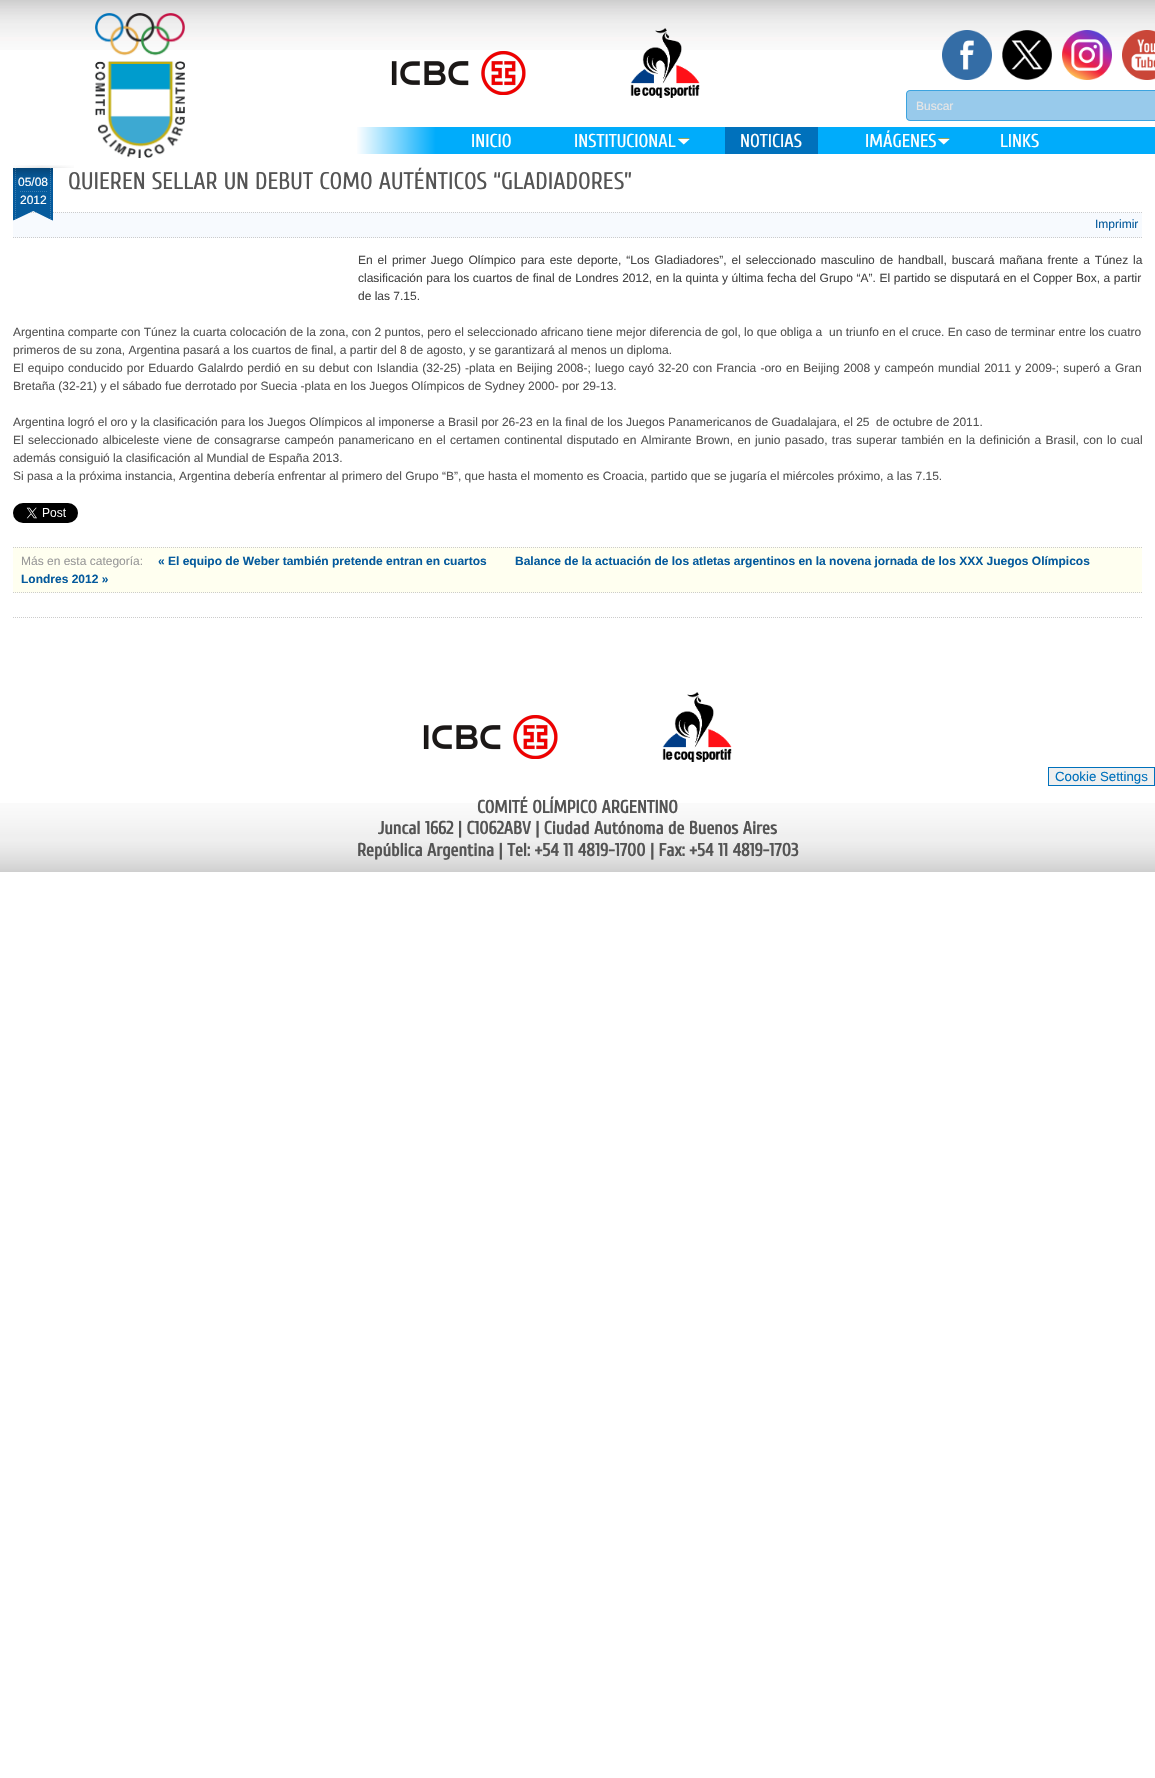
void draw(SkCanvas* c) {
SkPaint p;
p.setAntiAlias(true);
auto F=[&](const char* family, int weight, float size, bool italic = false){SkFontStyle style(weight, SkFontStyle::kNormal_Width,italic ? SkFontStyle::kItalic_Slant : SkFontStyle::kUpright_Slant);SkFont result(fontMgr->matchFamilyStyle(family, style), size);result.setSubpixel(true);return result;};
auto T=[&](const char* s, float x, float y, const SkFont& font){c->drawString(s, x, y, font, p);};
auto L=[&](const char* s, float x, float y, const SkFont& font, const SkPaint& ink, float letter, float word){std::vector<SkGlyphID> glyphs(font.countText(s, strlen(s), SkTextEncoding::kUTF8));std::vector<float> xs(glyphs.size());font.textToGlyphs(s, strlen(s), SkTextEncoding::kUTF8, glyphs);font.getXPos(glyphs, xs, x);float extra = 0;for (size_t i = 0; i < glyphs.size(); i++) {xs[i] += extra;extra += letter + word * (glyphs[i] == font.unicharToGlyph(' '));}c->drawTextBlob(SkTextBlob::MakeFromPosHGlyphs(glyphs, xs, y, font), 0, 0, ink);};
auto R=[&](float x, float y, float w, float h){c->drawRect(SkRect::MakeXYWH(x, y, w, h), p);};
auto I=[&](const char* path, float x, float y, float w, float h){auto image = SkImages::DeferredFromEncodedData(SkData::MakeFromFileName(path));c->drawImageRect(image, SkRect::MakeXYWH(x, y, w, h), SkSamplingOptions());};
auto P=[&](const char* data, bool evenOdd = false){SkPath result = *SkParsePath::FromSVGString(data);if (evenOdd) result.setFillType(SkPathFillType::kEvenOdd);return result;};
c->clear(0xffffffff);
I("1.png",0,0,1155,50);
I("2.png",95,13,90,145);
I("3.png",391,50,135,45);
I("4.png",630,28,70,70);
I("5.png",942,30,50,50);
I("6.png",1002,30,50,50);
I("7.png",1062,30,50,50);
I("8.png",1122,30,33,50);
I("9.png",906,90,249,31);
auto f1 = F("Liberation Sans",400,12);
p.setColor(0xffe6e6e6);
T("Buscar",916,110,f1);
{
const SkColor colors[] = {0xff00acfb,0xffffffff};
const float stops[] = {.9,1};
const SkPoint ends[] = {{1155,141}, {356,140}};
p.setShader(SkGradientShader::MakeLinear(ends, colors, stops, 2, SkTileMode::kClamp));
p.setAlpha(255);
}
R(357,127,798,27);
auto f2 = F("Cuprum",400,18.5);
p.setShader(nullptr);
p.setColor(0xffffffff);
T("INICIO",471,147,f2);
I("10.png",678,138,12,7);
T("INSTITUCIONAL",574,147,f2);
p.setColor(0xff0071bc);
R(725,127,93,27);
p.setColor(0xffffffff);
T("NOTICIAS",740,147,f2);
I("10.png",938,138,12,7);
T("IMÁGENES",865,147,f2);
T("LINKS",1000,147,f2);
p.setStroke(true);
p.setStrokeWidth(1);
p.setColor(0xffcccccc);
p.setPathEffect(SkDashPathEffect::Make({{1,1}}, 0));
c->drawPath(P("M13 617.5h1129"),p);
p.setPathEffect(nullptr);
p.setStroke(false);
p.setColor(0xfff7fafe);
R(13,212,1129,26);
p.setStroke(true);
p.setColor(0xffcccccc);
p.setPathEffect(SkDashPathEffect::Make({{1,1}}, 0));
c->drawPath(P("M13 212.5h1129"),p);
p.setPathEffect(nullptr);
I("11.png",13,165,61,56);
p.setStroke(false);
p.setColor(0xffffffff);
T("05/08",18,186,f1);
T("2012",20,204,f1);
auto f3 = F("Cuprum",400,24);
p.setColor(0xff545454);
T("QUIEREN SELLAR UN DEBUT COMO AUTÉNTICOS “GLADIADORES”",68,189,f3);
p.setStroke(true);
p.setColor(0xffcccccc);
p.setPathEffect(SkDashPathEffect::Make({{1,1}}, 0));
c->drawPath(P("M13 237.5h1129"),p);
p.setPathEffect(nullptr);
p.setStroke(false);
p.setColor(0xff065b9d);
T("Imprimir",1095,228,f1);
p.setColor(0xff444444);
L("En el primer Juego Olímpico para este deporte, “Los Gladiadores”, el seleccionado masculino de handball, buscará mañana frente a Túnez la",358,264,f1,p,0,1.6);
L("clasificación para los cuartos de final de Londres 2012, en la quinta y última fecha del Grupo “A”. El partido se disputará en el Copper Box, a partir",358,282,f1,p,0,.25);
T("de las 7.15.",358,300,f1);
p.setColor(0xff545454);
T("Argentina comparte con Túnez la cuarta colocación de la zona, con 2 puntos, pero el seleccionado africano tiene mejor diferencia de gol, lo que obliga a",13,336,f1);
T("un triunfo en el cruce. En caso de terminar entre los cuatro",829,336,f1);
T("primeros de su zona, Argentina pasará a los cuartos de final, a partir del 8 de agosto, y se garantizará al menos un diploma.",13,354,f1);
L("El equipo conducido por Eduardo Galalrdo perdió en su debut con Islandia (32-25) -plata en Beijing 2008-; luego cayó 32-20 con Francia -oro en Beijing 2008 y campeón mundial 2011 y 2009-; superó a Gran",13,372,f1,p,0,.8);
T("Bretaña (32-21) y el sábado fue derrotado por Suecia -plata en los Juegos Olímpicos de Sydney 2000- por 29-13.",13,390,f1);
T("Argentina logró el oro y la clasificación para los Juegos Olímpicos al imponerse a Brasil por 26-23 en la final de los Juegos Panamericanos de Guadalajara, el 25",13,426,f1);
T("de octubre de 2011.",876,426,f1);
L("El seleccionado albiceleste viene de consagrarse campeón panamericano en el certamen continental disputado en Almirante Brown, en junio pasado, tras superar también en la definición a Brasil, con lo cual",13,444,f1,p,0,1);
T("además consiguió la clasificación al Mundial de España 2013.",13,462,f1);
T("Si pasa a la próxima instancia, Argentina debería enfrentar al primero del Grupo “B”, que hasta el momento es Croacia, partido que se jugaría el miércoles próximo, a las 7.15.",13,480,f1);
I("12.png",13,503,65,20);
p.setColor(0xfffffff0);
R(13,547,1129,46);
p.setStroke(true);
p.setColor(0xffcccccc);
p.setPathEffect(SkDashPathEffect::Make({{1,1}}, 0));
c->drawPath(P("M13 547.5h1129"),p);
p.setPathEffect(nullptr);
p.setPathEffect(SkDashPathEffect::Make({{1,1}}, 0));
c->drawPath(P("M13 592.5h1129"),p);
p.setPathEffect(nullptr);
p.setStroke(false);
p.setColor(0xff999999);
T("Más en esta categoría:",21,565,f1);
auto f4 = F("Liberation Sans",700,12);
p.setColor(0xff065b9d);
T("« El equipo de Weber también pretende entran en cuartos",158,565,f4);
T("Balance de la actuación de los atletas argentinos en la novena jornada de los XXX Juegos Olímpicos",515,565,f4);
T("Londres 2012 »",21,583,f4);
I("13.png",0,803,1155,69);
I("3.png",423,714,135,45);
I("14.png",662,692,70,70);
p.setColor(0xffefefef);
c->drawRect(SkRect::MakeXYWH(1048.5,767.5,106,18),p);
p.setStroke(true);
p.setColor(0xff0071bc);
c->drawRect(SkRect::MakeXYWH(1048.5,767.5,106,18),p);
auto f5 = F("Liberation Sans",400,13.25);
p.setStroke(false);
T("Cookie Settings",1055,781,f5);
auto f6 = F("Cuprum",700,18);
p.setColor(0xff545454);
T("COMITÉ OLÍMPICO ARGENTINO",477,813,f6);
T("Juncal 1662 | C1062ABV | Ciudad Autónoma de Buenos Aires",378,834,f6);
T("República Argentina | Tel: +54 11 4819-1700 | Fax: +54 11 4819-1703",357,856,f6);
}
